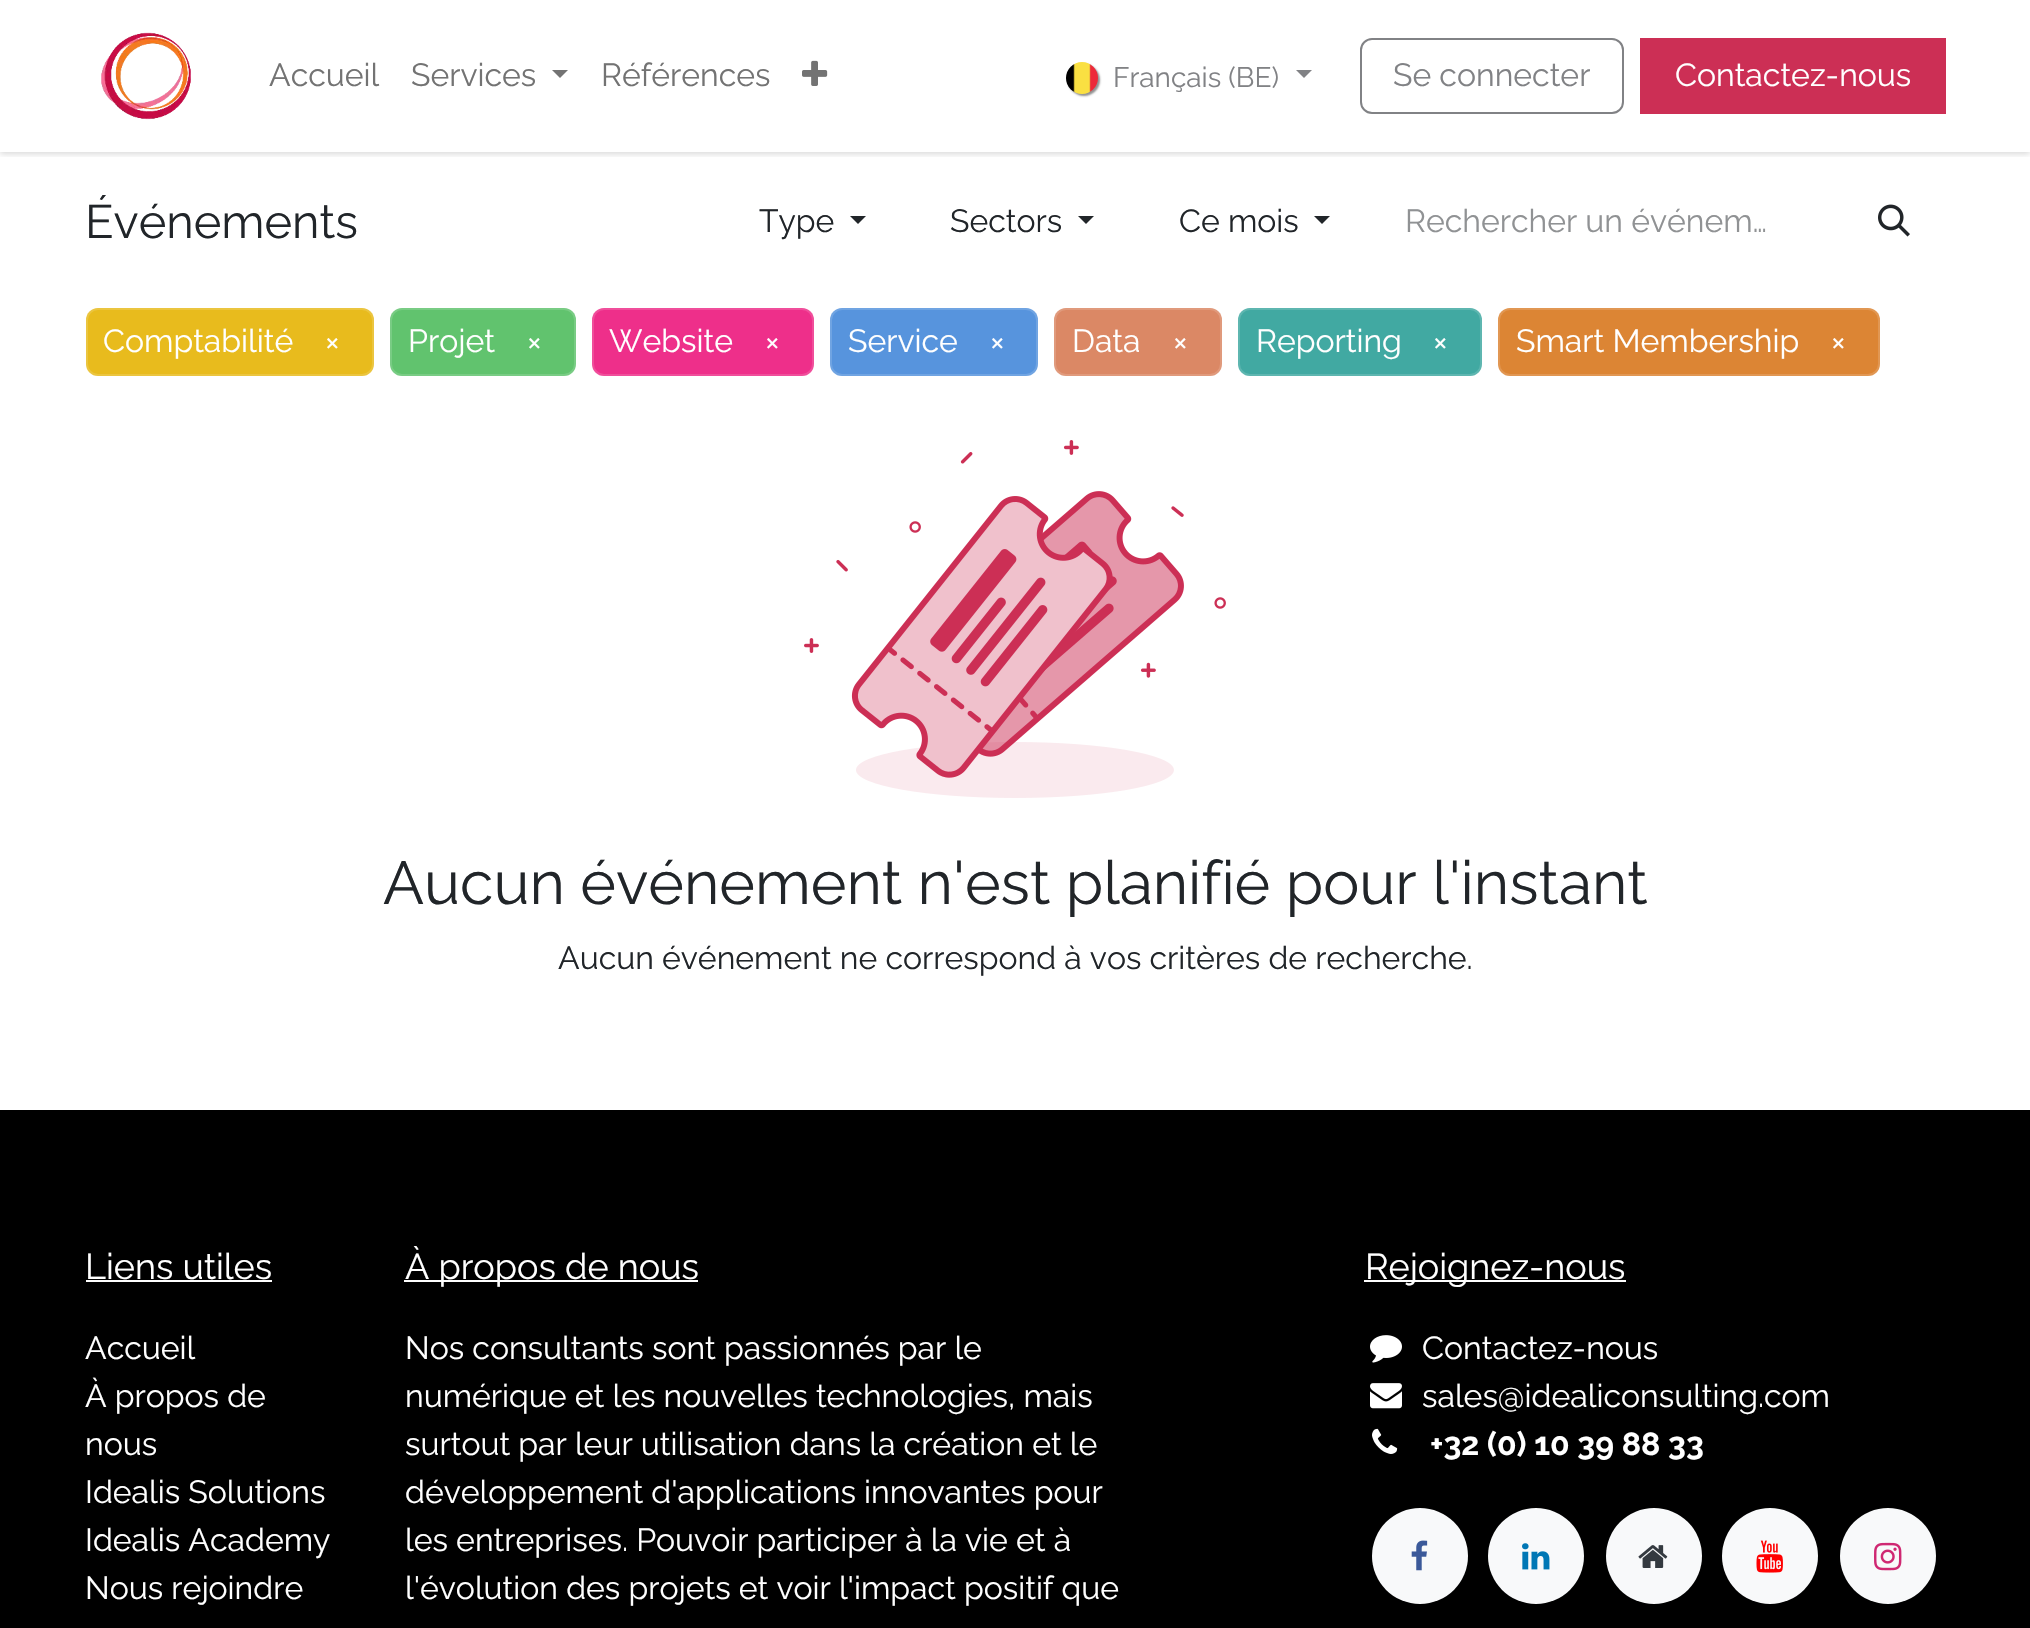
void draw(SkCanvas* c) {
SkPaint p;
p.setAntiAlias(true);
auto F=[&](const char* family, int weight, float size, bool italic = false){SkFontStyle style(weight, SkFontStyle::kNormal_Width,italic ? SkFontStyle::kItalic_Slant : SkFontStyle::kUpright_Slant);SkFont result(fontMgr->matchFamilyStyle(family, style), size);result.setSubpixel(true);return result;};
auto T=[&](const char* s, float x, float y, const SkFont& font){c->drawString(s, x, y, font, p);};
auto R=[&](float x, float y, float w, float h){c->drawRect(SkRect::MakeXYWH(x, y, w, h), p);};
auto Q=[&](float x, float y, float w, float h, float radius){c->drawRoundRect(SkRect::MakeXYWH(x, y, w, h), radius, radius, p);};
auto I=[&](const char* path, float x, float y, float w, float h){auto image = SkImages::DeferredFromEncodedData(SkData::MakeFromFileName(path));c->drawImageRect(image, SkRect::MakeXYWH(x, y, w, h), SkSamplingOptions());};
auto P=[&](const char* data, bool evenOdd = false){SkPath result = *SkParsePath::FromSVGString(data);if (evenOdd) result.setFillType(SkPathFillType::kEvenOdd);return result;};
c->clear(0xffffffff);
c->save();
c->clipRect(SkRect::MakeXYWH(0,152,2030,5));
p.setColor(0x26000000);
p.setMaskFilter(SkMaskFilter::MakeBlur(kNormal_SkBlurStyle, 3));
c->drawRect(SkRect::MakeXYWH(0,2,2030,152),p);
p.setMaskFilter(nullptr);
c->restore();
I("1.png",101,32,90,88);
auto f1 = F("Raleway",400,32);
p.setColor(0xff737373);
T("Accueil",269,86,f1);
T("Services",411,86,f1);
c->drawPath(P("M552 70h16l-8 8z"),p);
T("Références",601,86,f1);
I("2.png",802,60,26,26);
p.setColor(0x6e000000);
p.setMaskFilter(SkMaskFilter::MakeBlur(kNormal_SkBlurStyle, 1));
c->drawRoundRect(SkRect::MakeXYWH(1068,64,32,32),16,16,p);
p.setMaskFilter(nullptr);
I("3.png",1066,62,32,32);
auto f2 = F("Raleway",400,28);
p.setColor(0xff818285);
T("Français (BE)",1113,87,f2);
c->drawPath(P("M1296 70h16l-8 8z"),p);
p.setStroke(true);
p.setStrokeWidth(2);
c->drawRoundRect(SkRect::MakeXYWH(1361,39,262,74),11,11,p);
p.setStroke(false);
T("Se connecter",1393,86,f1);
p.setColor(0xffcc2f55);
R(1640,38,306,76);
p.setColor(0xffffffff);
T("Contactez-nous",1675,86,f1);
auto f3 = F("Raleway",400,47);
p.setColor(0xff212529);
T("Événements",85,238,f3);
T("Type",759,232,f1);
c->drawPath(P("M850 216h16l-8 8z"),p);
T("Sectors",950,232,f1);
c->drawPath(P("M1078 216h16l-8 8z"),p);
T("Ce mois",1179,232,f1);
c->drawPath(P("M1314 216h16l-8 8z"),p);
p.setColor(0xff909294);
T("Rechercher un événem…",1405,232,f1);
I("4.png",1878,204,32,33);
p.setColor(0xffe8bb1d);
Q(86,308,288,68,12);
p.setStroke(true);
p.setColor(0x26ffffff);
c->drawRoundRect(SkRect::MakeXYWH(87,309,286,66),11,11,p);
p.setStroke(false);
p.setColor(0xffffffff);
T("Comptabilité",103,352,f1);
T("×",325,352,f1);
p.setColor(0xff61c36e);
Q(390,308,186,68,12);
p.setStroke(true);
p.setColor(0x26ffffff);
c->drawRoundRect(SkRect::MakeXYWH(391,309,184,66),11,11,p);
p.setStroke(false);
p.setColor(0xffffffff);
T("Projet",408,352,f1);
T("×",527,352,f1);
p.setColor(0xffee2f8a);
Q(592,308,222,68,12);
p.setStroke(true);
p.setColor(0x26ffffff);
c->drawRoundRect(SkRect::MakeXYWH(593,309,220,66),11,11,p);
p.setStroke(false);
p.setColor(0xffffffff);
T("Website",609,352,f1);
T("×",765,352,f1);
p.setColor(0xff5794dd);
Q(830,308,208,68,12);
p.setStroke(true);
p.setColor(0x26ffffff);
c->drawRoundRect(SkRect::MakeXYWH(831,309,206,66),11,11,p);
p.setStroke(false);
p.setColor(0xffffffff);
T("Service",848,352,f1);
T("×",990,352,f1);
p.setColor(0xffdb8865);
Q(1054,308,168,68,12);
p.setStroke(true);
p.setColor(0x26ffffff);
c->drawRoundRect(SkRect::MakeXYWH(1055,309,166,66),11,11,p);
p.setStroke(false);
p.setColor(0xffffffff);
T("Data",1072,352,f1);
T("×",1173,352,f1);
p.setColor(0xff41a9a2);
Q(1238,308,244,68,12);
p.setStroke(true);
p.setColor(0x26ffffff);
c->drawRoundRect(SkRect::MakeXYWH(1239,309,242,66),11,11,p);
p.setStroke(false);
p.setColor(0xffffffff);
T("Reporting",1256,352,f1);
T("×",1433,352,f1);
p.setColor(0xffdc8534);
Q(1498,308,382,68,12);
p.setStroke(true);
p.setColor(0x26ffffff);
c->drawRoundRect(SkRect::MakeXYWH(1499,309,380,66),11,11,p);
p.setStroke(false);
p.setColor(0xffffffff);
T("Smart Membership",1516,352,f1);
T("×",1831,352,f1);
I("5.png",804,440,422,358);
auto f4 = F("Raleway",400,60.7);
p.setColor(0xff212529);
T("Aucun événement n'est planifié pour l'instant",383,904,f4);
T("Aucun événement ne correspond à vos critères de recherche.",558,969,f1);
p.setColor(0xff000000);
R(0,1110,2030,518);
auto f5 = F("Raleway",400,36);
p.setColor(0xffffffff);
T("Liens utiles",85,1279,f5);
R(86,1280,186,2);
T("Accueil",85,1359,f1);
T("À propos de",85,1407,f1);
T("nous",85,1455,f1);
T("Idealis Solutions",85,1503,f1);
T("Idealis Academy",85,1551,f1);
T("Nous rejoindre",85,1599,f1);
R(404,1280,294,2);
T("À propos de nous",405,1279,f5);
T("Nos consultants sont passionnés par le",405,1359,f1);
T("numérique et les nouvelles technologies, mais",405,1407,f1);
T("surtout par leur utilisation dans la création et le",405,1455,f1);
T("développement d'applications innovantes pour",405,1503,f1);
T("les entreprises. Pouvoir participer à la vie et à",405,1551,f1);
T("l'évolution des projets et voir l'impact positif que",405,1599,f1);
R(1364,1280,262,2);
T("Rejoignez-nous",1365,1279,f5);
I("6.png",1370,1335,32,28);
T("Contactez-nous",1422,1359,f1);
I("7.png",1370,1383,32,26);
T("sales@idealiconsulting.com",1422,1407,f1);
I("8.png",1372,1428,26,26);
auto f6 = F("Raleway",700,32);
T("+32 (0) 10 39 88 33",1430,1455,f6);
p.setColor(0xfff8f9fa);
c->drawCircle(1420,1556,48,p);
I("9.png",1411,1540,17,31);
c->drawCircle(1536,1556,48,p);
I("10.png",1522,1543,28,27);
c->drawCircle(1654,1556,48,p);
I("11.png",1638,1545,30,23);
c->drawCircle(1770,1556,48,p);
I("12.png",1756,1540,27,33);
c->drawCircle(1888,1556,48,p);
I("13.png",1874,1542,28,29);
}
